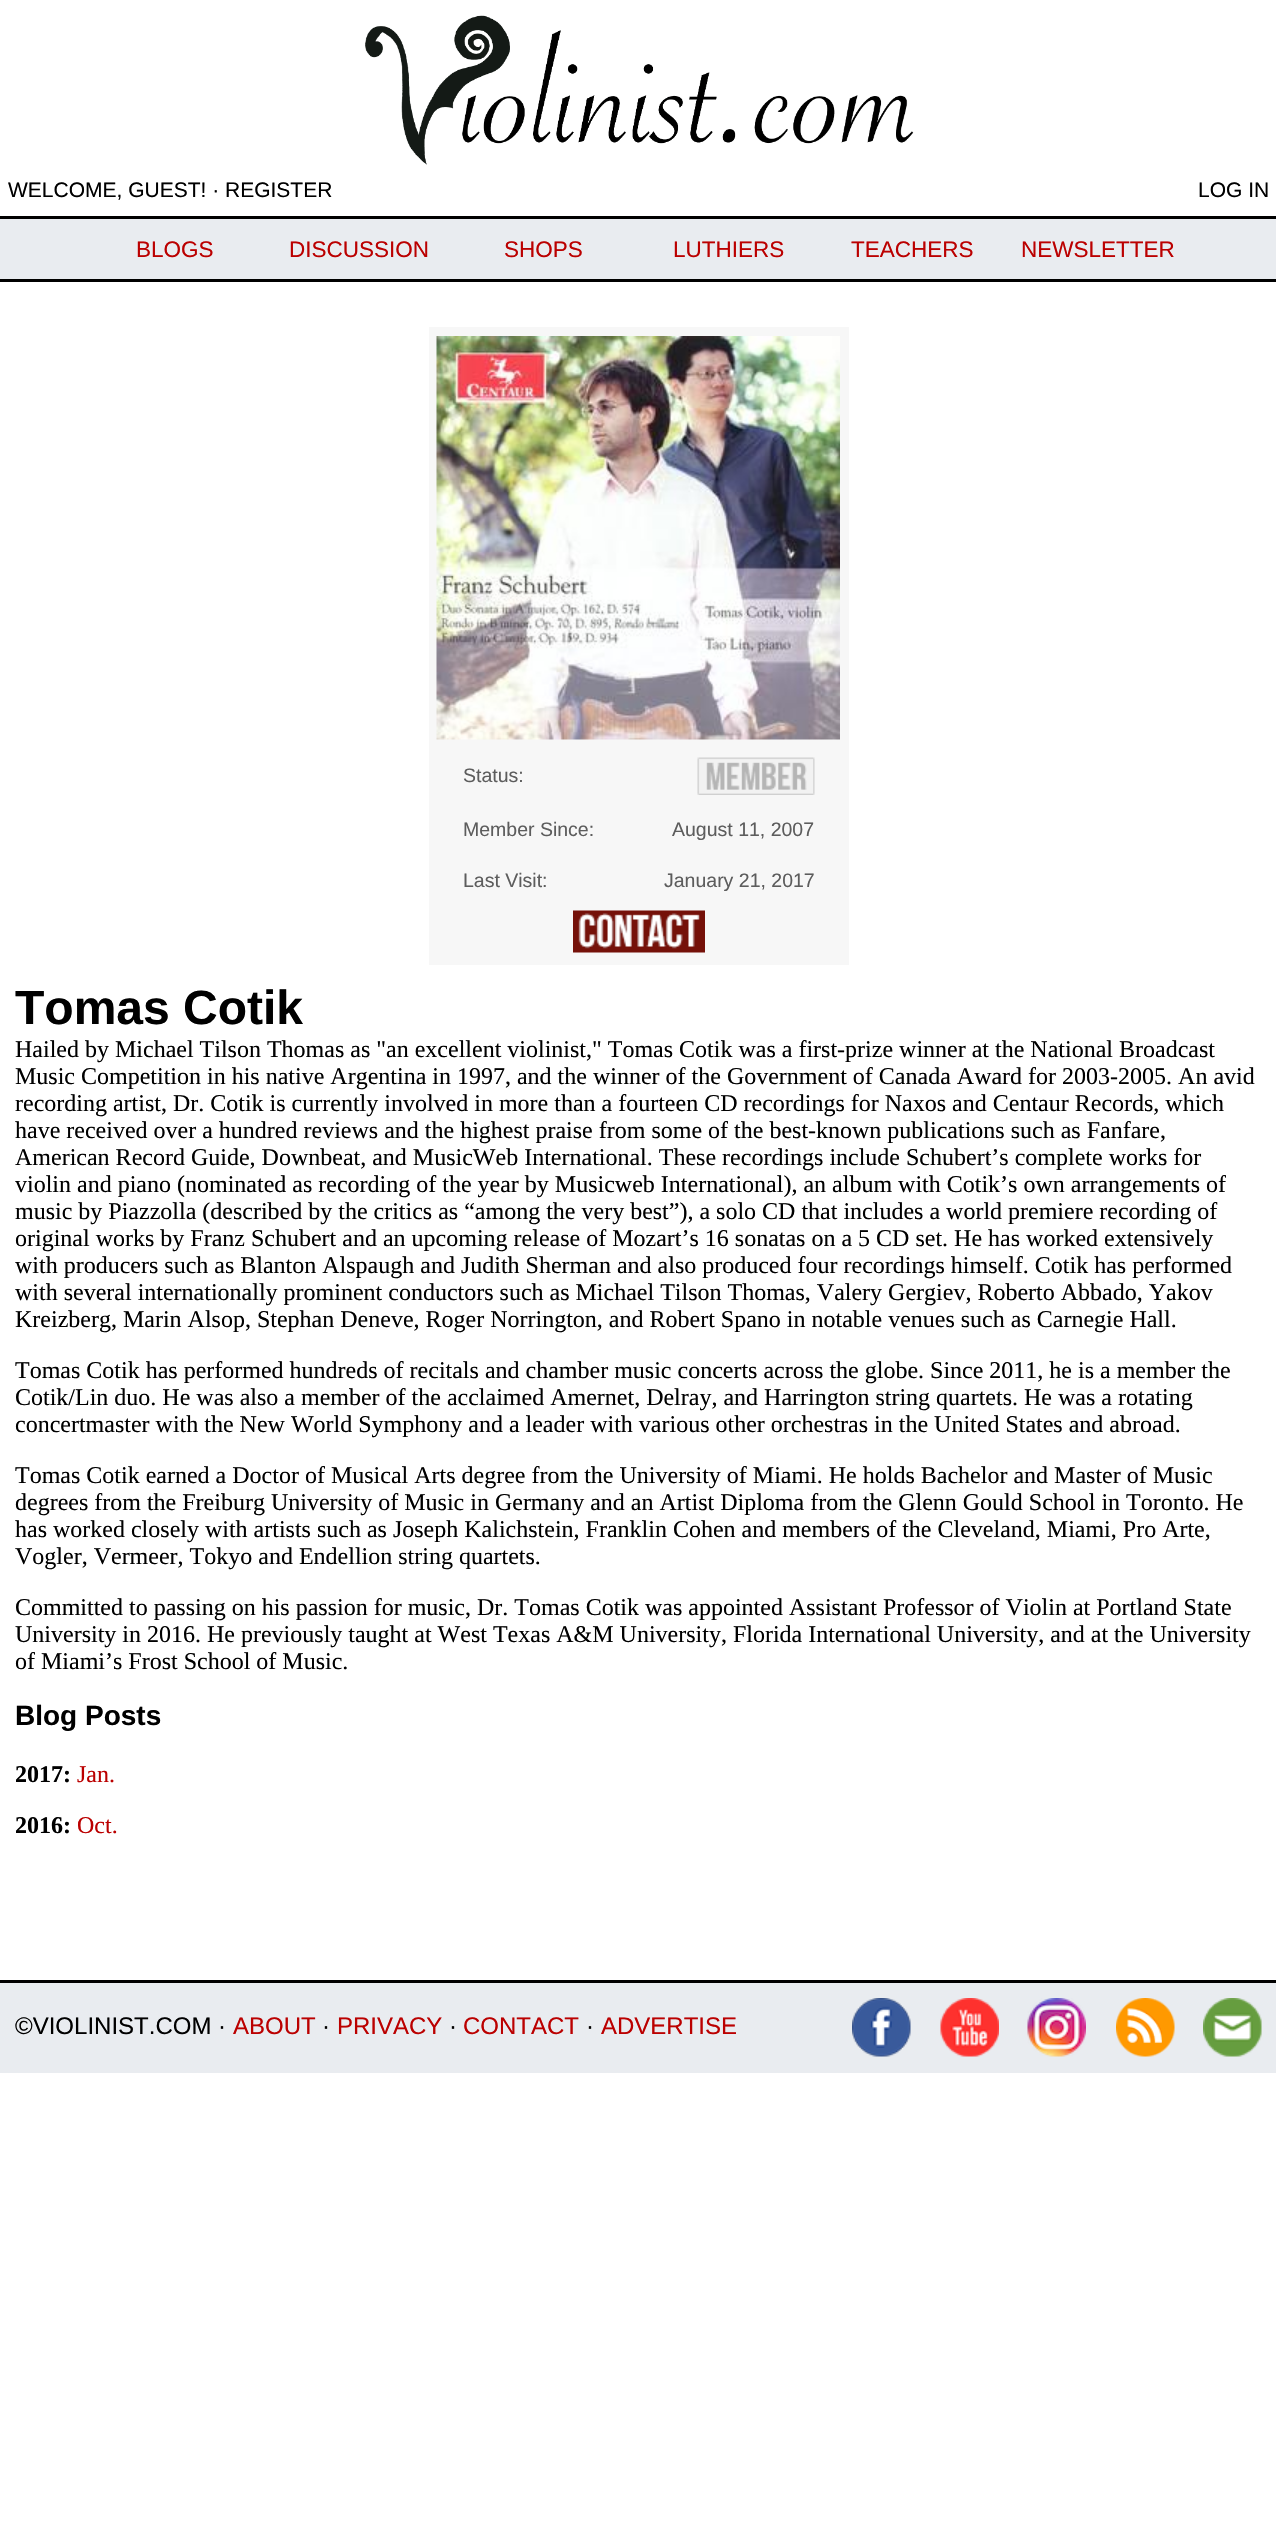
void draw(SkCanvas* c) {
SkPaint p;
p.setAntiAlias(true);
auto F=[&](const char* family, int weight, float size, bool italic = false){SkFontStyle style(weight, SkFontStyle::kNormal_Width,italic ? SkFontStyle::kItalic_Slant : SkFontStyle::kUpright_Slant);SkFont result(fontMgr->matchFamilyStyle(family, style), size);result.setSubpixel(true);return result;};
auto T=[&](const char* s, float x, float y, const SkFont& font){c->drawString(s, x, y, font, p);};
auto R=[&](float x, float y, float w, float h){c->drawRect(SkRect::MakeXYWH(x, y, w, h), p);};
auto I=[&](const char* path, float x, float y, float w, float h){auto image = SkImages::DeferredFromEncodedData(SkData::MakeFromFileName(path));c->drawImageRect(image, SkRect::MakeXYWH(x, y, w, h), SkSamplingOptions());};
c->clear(0xffffffff);
I("1.png",365,15,549,150);
auto f1 = F("Liberation Sans",400,21);
p.setColor(0xff000000);
T("WELCOME, GUEST! · REGISTER",8,197,f1);
T("LOG IN",1198,197,f1);
p.setColor(0xffe9ecf0);
R(0,219,1276,60);
p.setColor(0xff000000);
R(0,216,1276,3);
R(0,279,1276,3);
auto f2 = F("Liberation Sans",400,22.5);
p.setColor(0xffbb0000);
T("BLOGS",136,257,f2);
T("DISCUSSION",289,257,f2);
T("SHOPS",504,257,f2);
T("LUTHIERS",673,257,f2);
T("TEACHERS",851,257,f2);
T("NEWSLETTER",1021,257,f2);
p.setColor(0xfff7f7f7);
R(429,327,420,638);
I("2.png",436,336,404,404);
auto f3 = F("Liberation Sans",400,19.5);
p.setColor(0xff5d5d5d);
T("Status:",463,782,f3);
I("3.png",697,757,118,38);
T("Member Since:",463,836,f3);
T("August 11, 2007",672,836,f3);
T("Last Visit:",463,887,f3);
T("January 21, 2017",664,887,f3);
I("4.png",573,910,132,43);
auto f4 = F("Liberation Sans",700,48);
p.setColor(0xff000000);
T("Tomas Cotik",15,1024,f4);
auto f5 = F("Liberation Serif",400,24);
T("Hailed by Michael Tilson Thomas as \"an excellent violinist,\" Tomas Cotik was a first-prize winner at the National Broadcast",15,1057,f5);
T("Music Competition in his native Argentina in 1997, and the winner of the Government of Canada Award for 2003-2005. An avid",15,1084,f5);
T("recording artist, Dr. Cotik is currently involved in more than a fourteen CD recordings for Naxos and Centaur Records, which",15,1111,f5);
T("have received over a hundred reviews and the highest praise from some of the best-known publications such as Fanfare,",15,1138,f5);
T("American Record Guide, Downbeat, and MusicWeb International. These recordings include Schubert’s complete works for",15,1165,f5);
T("violin and piano (nominated as recording of the year by Musicweb International), an album with Cotik’s own arrangements of",15,1192,f5);
T("music by Piazzolla (described by the critics as “among the very best”), a solo CD that includes a world premiere recording of",15,1219,f5);
T("original works by Franz Schubert and an upcoming release of Mozart’s 16 sonatas on a 5 CD set. He has worked extensively",15,1246,f5);
T("with producers such as Blanton Alspaugh and Judith Sherman and also produced four recordings himself. Cotik has performed",15,1273,f5);
T("with several internationally prominent conductors such as Michael Tilson Thomas, Valery Gergiev, Roberto Abbado, Yakov",15,1300,f5);
T("Kreizberg, Marin Alsop, Stephan Deneve, Roger Norrington, and Robert Spano in notable venues such as Carnegie Hall.",15,1327,f5);
T("Tomas Cotik has performed hundreds of recitals and chamber music concerts across the globe. Since 2011, he is a member the",15,1378,f5);
T("Cotik/Lin duo. He was also a member of the acclaimed Amernet, Delray, and Harrington string quartets. He was a rotating",15,1405,f5);
T("concertmaster with the New World Symphony and a leader with various other orchestras in the United States and abroad.",15,1432,f5);
T("Tomas Cotik earned a Doctor of Musical Arts degree from the University of Miami. He holds Bachelor and Master of Music",15,1483,f5);
T("degrees from the Freiburg University of Music in Germany and an Artist Diploma from the Glenn Gould School in Toronto. He",15,1510,f5);
T("has worked closely with artists such as Joseph Kalichstein, Franklin Cohen and members of the Cleveland, Miami, Pro Arte,",15,1537,f5);
T("Vogler, Vermeer, Tokyo and Endellion string quartets.",15,1564,f5);
T("Committed to passing on his passion for music, Dr. Tomas Cotik was appointed Assistant Professor of Violin at Portland State",15,1615,f5);
T("University in 2016. He previously taught at West Texas A&M University, Florida International University, and at the University",15,1642,f5);
T("of Miami’s Frost School of Music.",15,1669,f5);
auto f6 = F("Liberation Sans",700,28);
T("Blog Posts",15,1725,f6);
auto f7 = F("Liberation Serif",700,24);
T("2017:",15,1782,f7);
p.setColor(0xffbb0000);
T("Jan.",77,1782,f5);
p.setColor(0xff000000);
T("2016:",15,1833,f7);
p.setColor(0xffbb0000);
T("Oct.",77,1833,f5);
p.setColor(0xffe9ecf0);
R(0,1983,1276,90);
p.setColor(0xff000000);
R(0,1980,1276,3);
auto f8 = F("Liberation Sans",400,24);
T("©VIOLINIST.COM ·",15,2034,f8);
p.setColor(0xffbb0000);
T("ABOUT",233,2034,f8);
p.setColor(0xff000000);
T("·",322,2034,f8);
p.setColor(0xffbb0000);
T("PRIVACY",337,2034,f8);
p.setColor(0xff000000);
T("·",449,2034,f8);
p.setColor(0xffbb0000);
T("CONTACT",463,2034,f8);
p.setColor(0xff000000);
T("·",586,2034,f8);
p.setColor(0xffbb0000);
T("ADVERTISE",601,2034,f8);
I("5.png",852,1998,59,59);
I("6.png",940,1998,59,59);
I("7.png",1027,1998,59,59);
I("8.png",1116,1998,59,59);
I("9.png",1203,1998,59,59);
}
